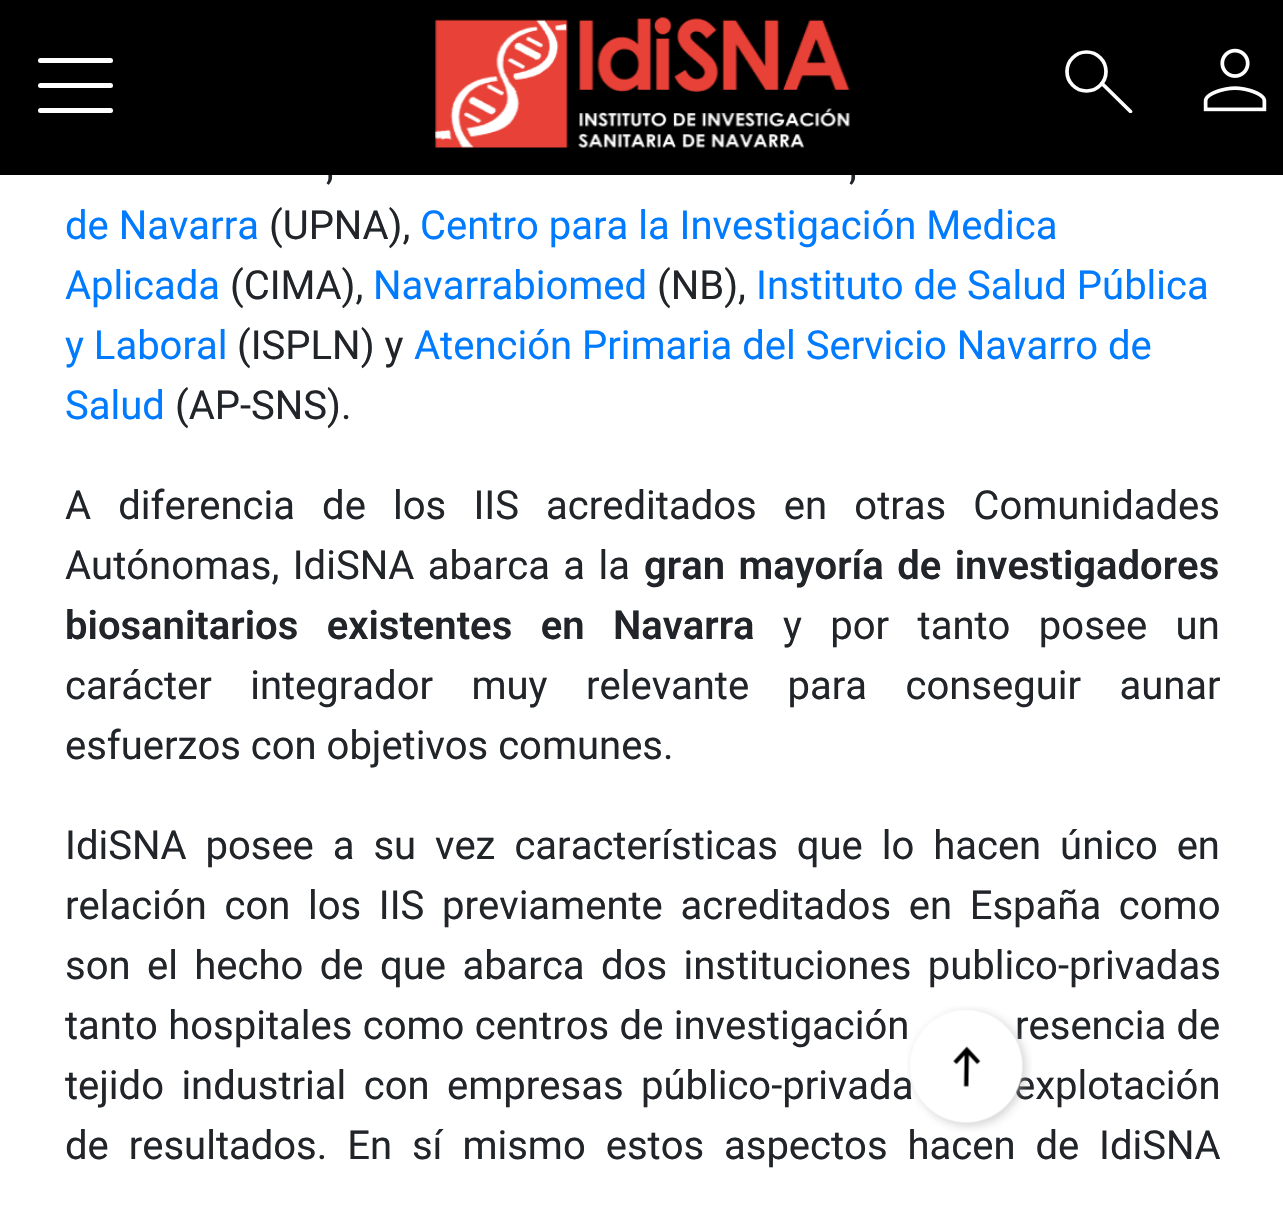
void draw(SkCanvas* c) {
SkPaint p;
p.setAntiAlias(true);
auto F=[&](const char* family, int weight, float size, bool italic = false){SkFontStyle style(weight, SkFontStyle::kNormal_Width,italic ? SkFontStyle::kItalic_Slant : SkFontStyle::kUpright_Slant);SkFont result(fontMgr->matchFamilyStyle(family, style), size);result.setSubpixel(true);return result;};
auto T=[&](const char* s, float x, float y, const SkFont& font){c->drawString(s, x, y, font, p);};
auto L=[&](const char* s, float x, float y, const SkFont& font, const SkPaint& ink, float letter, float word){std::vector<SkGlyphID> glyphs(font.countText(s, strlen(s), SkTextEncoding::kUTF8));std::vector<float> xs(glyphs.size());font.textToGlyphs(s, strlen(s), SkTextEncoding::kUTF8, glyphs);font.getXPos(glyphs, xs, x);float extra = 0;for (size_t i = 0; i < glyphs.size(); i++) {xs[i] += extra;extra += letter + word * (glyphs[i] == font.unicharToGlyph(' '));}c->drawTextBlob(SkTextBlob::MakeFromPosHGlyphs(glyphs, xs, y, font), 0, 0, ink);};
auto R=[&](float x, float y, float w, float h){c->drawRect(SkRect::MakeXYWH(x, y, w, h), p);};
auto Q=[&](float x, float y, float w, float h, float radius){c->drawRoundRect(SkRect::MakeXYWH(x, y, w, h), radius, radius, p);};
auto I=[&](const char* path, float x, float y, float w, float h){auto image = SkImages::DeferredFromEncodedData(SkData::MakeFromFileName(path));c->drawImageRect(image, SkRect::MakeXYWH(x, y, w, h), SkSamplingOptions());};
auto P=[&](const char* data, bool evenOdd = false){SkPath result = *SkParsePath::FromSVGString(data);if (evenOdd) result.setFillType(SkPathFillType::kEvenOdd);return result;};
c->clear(0xffffffff);
auto f1 = F("Roboto",400,40);
p.setColor(0xff212529);
T(",",326,179,f1);
T(",",849,179,f1);
p.setColor(0xff000000);
R(0,0,1283,175);
p.setColor(0xffffffff);
Q(38,58,75,5,2.5);
Q(38,83,75,5,2.5);
Q(38,108,75,5,2.5);
I("1.png",435,17,415,131);
p.setStroke(true);
p.setStrokeWidth(3.7);
c->drawCircle(1086.5,71.5,19.5,p);
c->save();
c->clipRect(SkRect::MakeXYWH(1065,50,68,63));
p.setStrokeCap(SkPaint::kRound_Cap);
p.setStrokeJoin(SkPaint::kRound_Join);
c->drawPath(P("M1102 83.5l28.5 28"),p);
c->restore();
I("2.png",1203,48,64,64);
p.setStroke(false);
p.setColor(0xff007bff);
T("de Navarra",65,239,f1);
p.setColor(0xff212529);
T("(UPNA),",269,239,f1);
p.setColor(0xff007bff);
T("Centro para la Investigación Medica",420,239,f1);
T("Aplicada",65,299,f1);
p.setColor(0xff212529);
T("(CIMA),",230,299,f1);
p.setColor(0xff007bff);
T("Navarrabiomed",373,299,f1);
p.setColor(0xff212529);
T("(NB),",657,299,f1);
p.setColor(0xff007bff);
T("Instituto de Salud Pública",756,299,f1);
T("y Laboral",65,359,f1);
p.setColor(0xff212529);
T("(ISPLN) y",237,359,f1);
p.setColor(0xff007bff);
T("Atención Primaria del Servicio Navarro de",414,359,f1);
T("Salud",65,419,f1);
p.setColor(0xff212529);
T("(AP-SNS).",175,419,f1);
L("A diferencia de los IIS acreditados en otras Comunidades",65,519,f1,p,0,17.25);
L("Autónomas, IdiSNA abarca a la",65,579,f1,p,0,3.5);
auto f2 = F("Roboto",600,40);
L("gran mayoría de investigadores",644,579,f2,p,0,3.5);
L("biosanitarios existentes en Navarra",65,639,f2,p,0,18.5);
L("y por tanto posee un",783,639,f1,p,0,18.5);
L("carácter integrador muy relevante para conseguir aunar",65,699,f1,p,0,28.5);
T("esfuerzos con objetivos comunes.",65,759,f1);
L("IdiSNA posee a su vez características que lo hacen único en",65,859,f1,p,0,9);
L("relación con los IIS previamente acreditados en España como",65,919,f1,p,0,7.75);
L("son el hecho de que abarca dos instituciones publico-privadas",65,979,f1,p,0,6.5);
L("tanto hospitales como centros de investigación",65,1039,f1,p,0,.5);
L("resencia de",1015,1039,f1,p,0,.5);
L("tejido industrial con empresas público-privada",65,1099,f1,p,0,7.5);
L("explotación",1014,1099,f1,p,0,7.5);
L("de resultados. En sí mismo estos aspectos hacen de IdiSNA",65,1159,f1,p,0,10);
I("3.png",907,1006,125,126);
}
